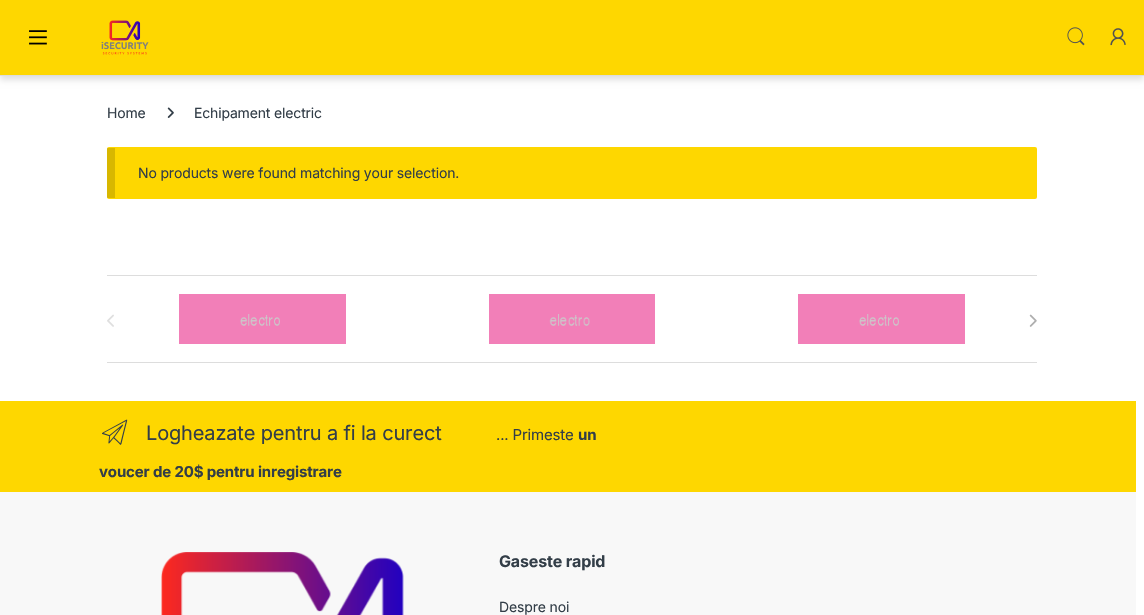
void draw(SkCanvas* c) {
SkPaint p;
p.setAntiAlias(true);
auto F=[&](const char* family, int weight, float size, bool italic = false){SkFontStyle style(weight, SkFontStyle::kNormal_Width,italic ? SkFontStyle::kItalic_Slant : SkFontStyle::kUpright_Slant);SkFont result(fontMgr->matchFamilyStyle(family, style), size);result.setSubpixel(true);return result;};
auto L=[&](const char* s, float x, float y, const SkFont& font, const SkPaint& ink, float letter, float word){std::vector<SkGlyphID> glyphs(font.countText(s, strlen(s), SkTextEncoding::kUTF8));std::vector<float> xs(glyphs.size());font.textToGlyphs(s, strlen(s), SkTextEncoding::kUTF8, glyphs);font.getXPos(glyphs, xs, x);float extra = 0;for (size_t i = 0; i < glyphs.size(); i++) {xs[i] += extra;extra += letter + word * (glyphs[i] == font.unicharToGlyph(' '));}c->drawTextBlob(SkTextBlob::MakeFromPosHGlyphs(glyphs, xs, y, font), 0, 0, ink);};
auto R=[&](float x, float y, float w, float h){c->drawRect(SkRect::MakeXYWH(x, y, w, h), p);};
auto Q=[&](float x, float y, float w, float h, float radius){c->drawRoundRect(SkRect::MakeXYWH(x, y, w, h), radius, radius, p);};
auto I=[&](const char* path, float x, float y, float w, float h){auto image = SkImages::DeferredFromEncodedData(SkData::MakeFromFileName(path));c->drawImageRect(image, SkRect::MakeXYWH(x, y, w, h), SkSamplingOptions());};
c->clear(0xffffffff);
p.setColor(0x1f000000);
p.setMaskFilter(SkMaskFilter::MakeBlur(kNormal_SkBlurStyle, 3));
c->drawRect(SkRect::MakeXYWH(0,4,1144,76),p);
p.setMaskFilter(nullptr);
p.setColor(0xffdddddd);
R(0,75,1144,1);
p.setColor(0xfffed700);
R(0,0,1144,75);
I("1.png",29,30,18,15);
I("2.png",101,20,48,35);
I("3.png",1067,27,18,19);
I("4.png",1110,28,16,18);
auto f1 = F("Inter",400,14);
p.setColor(0xff333e48);
L("Home",107,118,f1,p,-.15,0);
I("5.png",167,107,7,11);
L("Echipament electric",194,118,f1,p,-.15,0);
p.setColor(0xfffed700);
Q(107,147,930,52,2);
p.setColor(0x26000000);
R(107,148,8,50);
p.setColor(0xff333e48);
L("No products were found matching your selection.",138,178,f1,p,-.15,0);
p.setColor(0xffdddddd);
R(107,275,930,1);
R(107,362,930,1);
I("6.png",179,294,167,50);
I("7.png",489,294,166,50);
I("6.png",798,294,167,50);
I("8.png",107,314,7,13);
I("9.png",1029,314,8,13);
p.setColor(0xfffed700);
R(0,401,1136,91);
I("10.png",102,419,26,26);
auto f2 = F("Inter",400,20);
p.setColor(0xff333e48);
L("Logheazate pentru a fi la curect",146,440,f2,p,-.15,0);
auto f3 = F("Inter",400,15);
L("... Primeste",496,440,f3,p,-.15,0);
auto f4 = F("Inter",700,15);
L("un",578,440,f4,p,-.15,0);
L("voucer de 20$ pentru inregistrare",99,477,f4,p,-.15,0);
p.setColor(0xfff8f8f8);
R(0,492,1136,123);
I("11.png",161,552,243,63);
auto f5 = F("Inter",700,16);
p.setColor(0xff333e48);
L("Gaseste rapid",499,567,f5,p,-.15,0);
L("Despre noi",499,612,f1,p,-.15,0);
}
